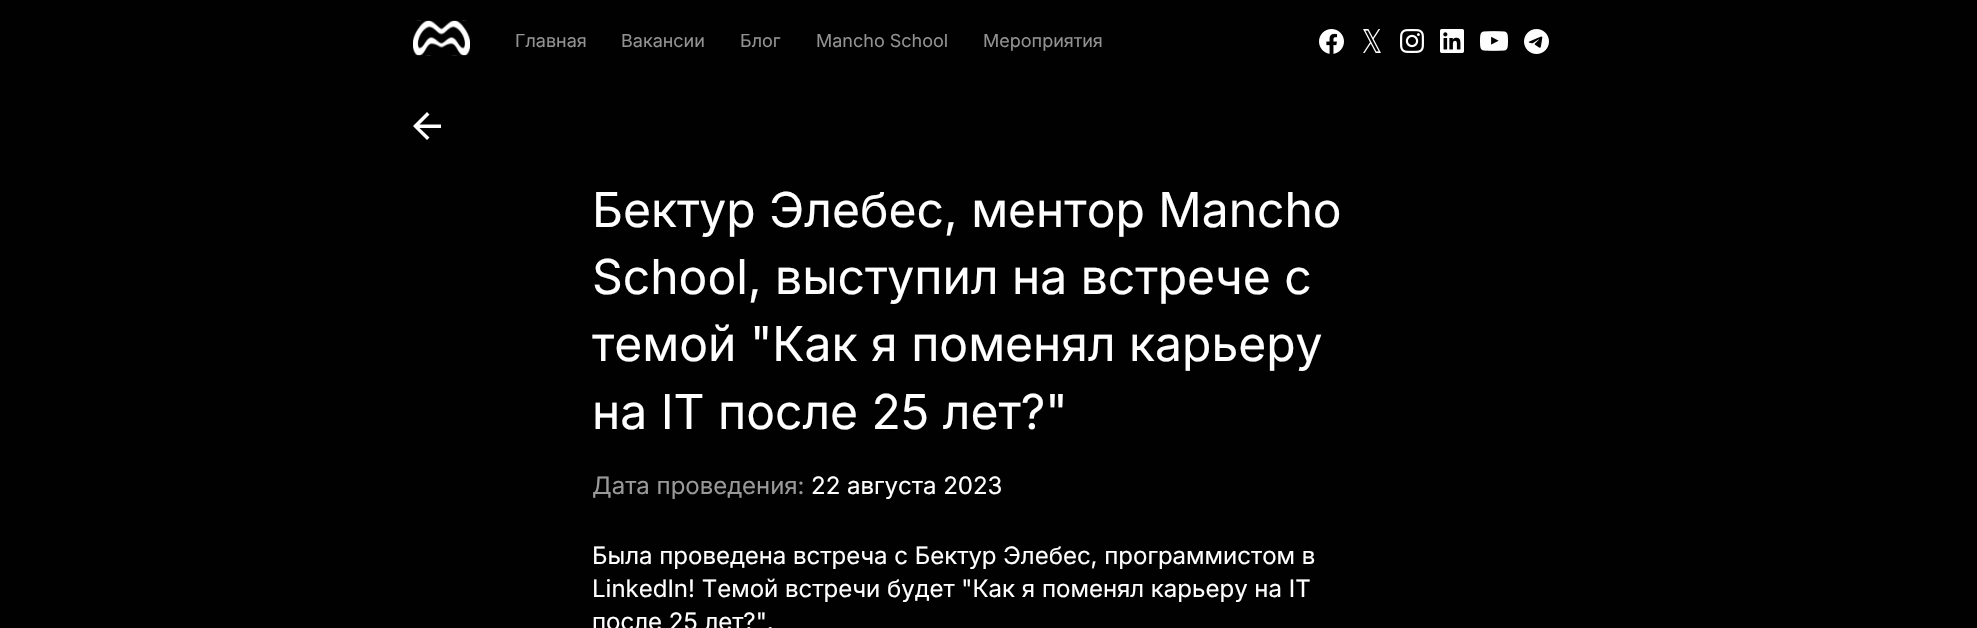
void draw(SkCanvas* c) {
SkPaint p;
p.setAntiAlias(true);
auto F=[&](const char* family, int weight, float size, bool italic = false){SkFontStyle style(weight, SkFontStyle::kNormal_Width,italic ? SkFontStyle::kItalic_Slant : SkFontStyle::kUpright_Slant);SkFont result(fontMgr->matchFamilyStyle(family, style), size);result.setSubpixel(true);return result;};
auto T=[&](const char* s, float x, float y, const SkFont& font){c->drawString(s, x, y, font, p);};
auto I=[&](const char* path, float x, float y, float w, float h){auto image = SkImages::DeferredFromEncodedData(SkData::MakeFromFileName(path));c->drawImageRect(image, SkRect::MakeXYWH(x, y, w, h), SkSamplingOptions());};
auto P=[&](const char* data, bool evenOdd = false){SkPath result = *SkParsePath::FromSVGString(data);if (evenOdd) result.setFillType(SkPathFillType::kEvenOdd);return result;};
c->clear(0xff010101);
I("1.png",413,20,57,36);
auto f1 = F("Inter",400,18);
p.setColor(0xff929292);
T("Главная",515,47,f1);
T("Вакансии",621,47,f1);
T("Блог",740,47,f1);
T("Mancho School",816,47,f1);
T("Мероприятия",983,47,f1);
I("2.png",1319,29,25,25);
I("3.png",1363,29,18,24);
I("4.png",1400,29,24,24);
I("5.png",1440,29,24,24);
I("6.png",1480,31,28,20);
I("7.png",1524,29,25,25);
p.setColor(0xffffffff);
c->drawPath(P("M419.5 128l10 9.5l-2.5 2.5l-14-14l14-14l2.5 2.5l-10 10h21.5v3.5z"),p);
auto f2 = F("Inter",400,48);
T("Бектур Элебес, ментор Mancho",592,227,f2);
T("School, выступил на встрече с",592,294,f2);
T("темой \"Как я поменял карьеру",592,361,f2);
T("на IT после 25 лет?\"",592,429,f2);
auto f3 = F("Inter",400,24);
p.setColor(0xff999999);
T("Дата проведения:",592,494,f3);
p.setColor(0xffffffff);
T("22 августа 2023",811,494,f3);
T("Была проведена встреча с Бектур Элебес, программистом в",592,564,f3);
T("LinkedIn! Темой встречи будет \"Как я поменял карьеру на IT",592,597,f3);
T("после 25 лет?\".",592,630,f3);
}
